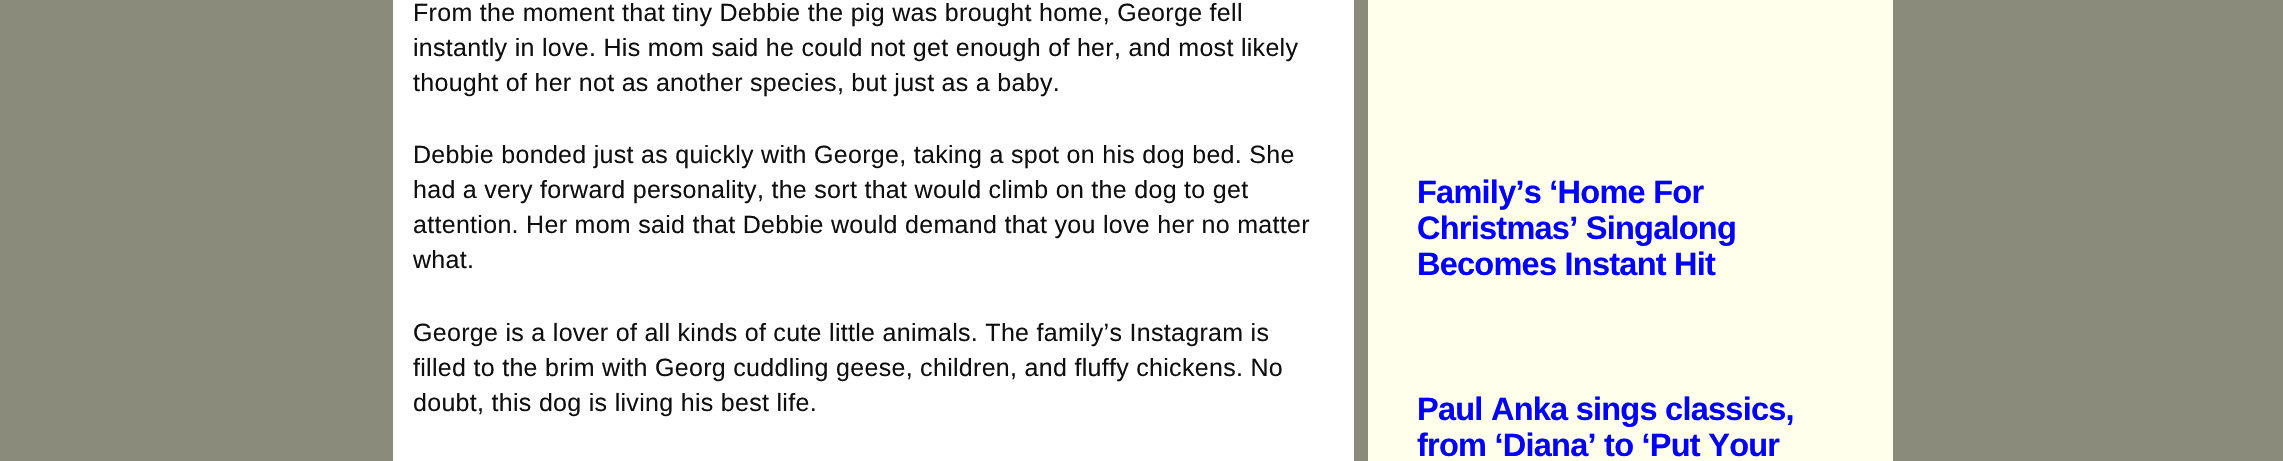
void draw(SkCanvas* c) {
SkPaint p;
p.setAntiAlias(true);
auto F=[&](const char* family, int weight, float size, bool italic = false){SkFontStyle style(weight, SkFontStyle::kNormal_Width,italic ? SkFontStyle::kItalic_Slant : SkFontStyle::kUpright_Slant);SkFont result(fontMgr->matchFamilyStyle(family, style), size);result.setSubpixel(true);return result;};
auto L=[&](const char* s, float x, float y, const SkFont& font, const SkPaint& ink, float letter, float word){std::vector<SkGlyphID> glyphs(font.countText(s, strlen(s), SkTextEncoding::kUTF8));std::vector<float> xs(glyphs.size());font.textToGlyphs(s, strlen(s), SkTextEncoding::kUTF8, glyphs);font.getXPos(glyphs, xs, x);float extra = 0;for (size_t i = 0; i < glyphs.size(); i++) {xs[i] += extra;extra += letter + word * (glyphs[i] == font.unicharToGlyph(' '));}c->drawTextBlob(SkTextBlob::MakeFromPosHGlyphs(glyphs, xs, y, font), 0, 0, ink);};
auto R=[&](float x, float y, float w, float h){c->drawRect(SkRect::MakeXYWH(x, y, w, h), p);};
c->clear(0xff8b8b7c);
p.setColor(0xffffffff);
R(393,0,961,461);
auto f1 = F("Liberation Sans",400,25);
p.setColor(0xff0f0f0f);
L("From the moment that tiny Debbie the pig was brought home, George fell",413,21,f1,p,.3,0);
L("instantly in love. His mom said he could not get enough of her, and most likely",413,56,f1,p,.3,0);
L("thought of her not as another species, but just as a baby.",413,91,f1,p,.3,0);
L("Debbie bonded just as quickly with George, taking a spot on his dog bed. She",413,163,f1,p,.3,0);
L("had a very forward personality, the sort that would climb on the dog to get",413,198,f1,p,.3,0);
L("attention. Her mom said that Debbie would demand that you love her no matter",413,233,f1,p,.3,0);
L("what.",413,268,f1,p,.3,0);
L("George is a lover of all kinds of cute little animals. The family’s Instagram is",413,341,f1,p,.3,0);
L("filled to the brim with Georg cuddling geese, children, and fluffy chickens. No",413,376,f1,p,.3,0);
L("doubt, this dog is living his best life.",413,411,f1,p,.3,0);
p.setColor(0xffffffec);
R(1368,0,525,461);
auto f2 = F("Liberation Sans",700,32.5);
p.setColor(0xff0000ff);
L("Family’s ‘Home For",1417,203,f2,p,-.75,0);
L("Christmas’ Singalong",1417,239,f2,p,-.75,0);
L("Becomes Instant Hit",1417,275,f2,p,-.75,0);
L("Paul Anka sings classics,",1417,420,f2,p,-.75,0);
L("from ‘Diana’ to ‘Put Your",1417,456,f2,p,-.75,0);
}
